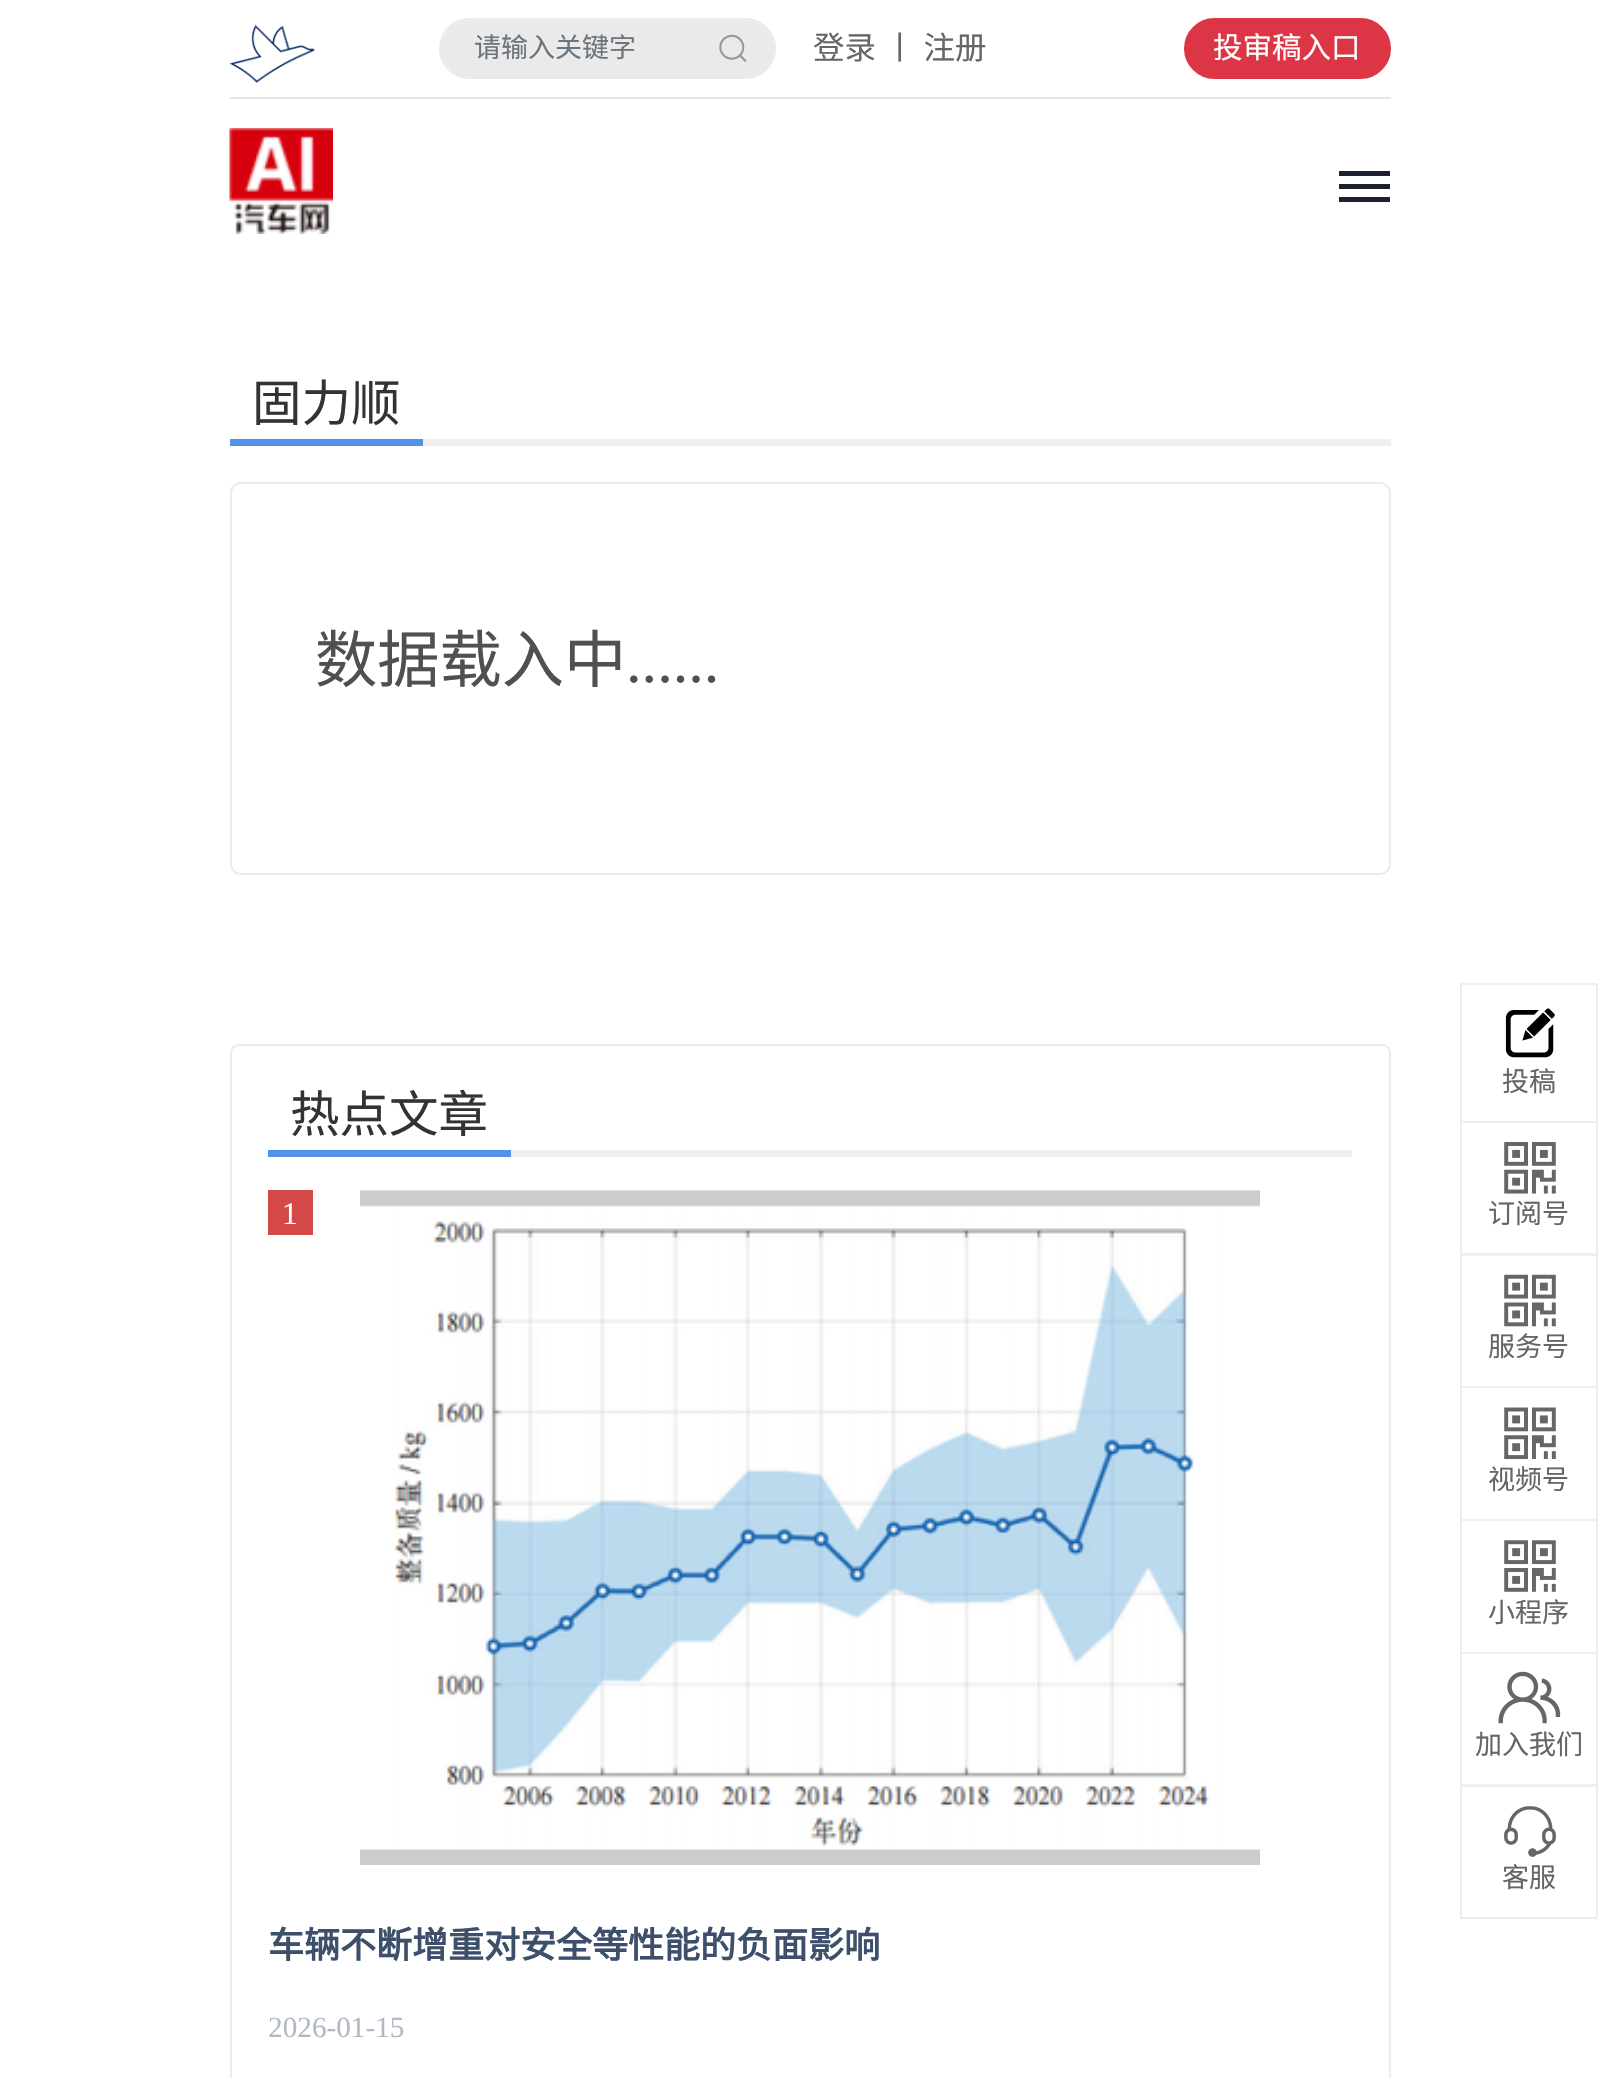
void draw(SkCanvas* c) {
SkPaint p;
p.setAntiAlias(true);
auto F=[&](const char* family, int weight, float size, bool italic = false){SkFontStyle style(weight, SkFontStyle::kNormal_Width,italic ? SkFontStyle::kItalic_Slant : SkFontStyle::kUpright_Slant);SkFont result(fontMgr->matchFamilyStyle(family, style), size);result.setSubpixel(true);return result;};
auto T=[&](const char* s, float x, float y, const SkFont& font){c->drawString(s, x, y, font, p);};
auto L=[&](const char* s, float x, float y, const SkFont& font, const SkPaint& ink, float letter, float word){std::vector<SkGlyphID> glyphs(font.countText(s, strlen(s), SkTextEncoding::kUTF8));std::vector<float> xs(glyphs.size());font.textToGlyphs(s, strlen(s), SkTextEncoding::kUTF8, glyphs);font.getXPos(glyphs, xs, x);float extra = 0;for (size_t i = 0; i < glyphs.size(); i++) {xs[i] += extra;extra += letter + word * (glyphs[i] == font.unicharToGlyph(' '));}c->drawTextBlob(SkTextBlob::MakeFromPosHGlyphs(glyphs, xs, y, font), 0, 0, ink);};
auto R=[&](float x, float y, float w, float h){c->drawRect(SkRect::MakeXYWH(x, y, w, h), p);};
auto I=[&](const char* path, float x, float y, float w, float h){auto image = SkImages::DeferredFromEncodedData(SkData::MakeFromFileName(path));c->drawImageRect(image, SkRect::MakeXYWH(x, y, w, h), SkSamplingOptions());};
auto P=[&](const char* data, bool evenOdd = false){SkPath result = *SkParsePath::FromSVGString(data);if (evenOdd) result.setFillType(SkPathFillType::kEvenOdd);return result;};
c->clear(0xffffffff);
I("1.png",229,24,86,59);
p.setStroke(true);
p.setStrokeWidth(2);
p.setColor(0xffebeaea);
c->drawRoundRect(SkRect::MakeXYWH(440,19,335,59),29.5,29.5,p);
p.setStroke(false);
c->drawPath(P("M691 20h54.5c15.5 0 28.5 13 28.5 28.5c0 15.5-13 28.5-28.5 28.5h-54.5z"),p);
c->drawPath(P("M469.5 20h223.5v57h-223.5c-15.5 0-28.5-13-28.5-28.5c0-15.5 13-28.5 28.5-28.5z"),p);
auto f1 = F("Noto Sans CJK SC",400,27);
p.setColor(0xff6c757d);
T("请输入关键字",474,57,f1);
I("2.png",719,34,28,28);
auto f2 = F("Noto Sans CJK SC",400,31.5);
p.setColor(0xff666666);
L("登录 丨 注册",813,59,f2,p,0,1);
p.setColor(0xffdc3545);
c->drawRoundRect(SkRect::MakeXYWH(1185,19,205,59),29.5,29.5,p);
p.setStroke(true);
c->drawRoundRect(SkRect::MakeXYWH(1185,19,205,59),29.5,29.5,p);
auto f3 = F("Noto Sans CJK SC",400,29.5);
p.setStroke(false);
p.setColor(0xffffffff);
T("投审稿入口",1213,58,f3);
p.setColor(0xffe5e5e5);
R(230,97,1161,2);
I("3.png",229,128,104,106);
p.setColor(0xff1b2131);
c->drawPath(P("M1390 197v5h-51v-5zm0-13v5h-51v-5zm0-13v5h-51v-5z"),p);
p.setColor(0xffefefef);
R(423,439,968,7);
p.setColor(0xff5492ea);
R(230,439,193,7);
auto f4 = F("Noto Sans CJK SC",400,49.5);
p.setColor(0xff333333);
T("固力顺",252,421,f4);
p.setStroke(true);
p.setColor(0xffe9ecf2);
c->drawRoundRect(SkRect::MakeXYWH(231,483,1159,391),10,10,p);
auto f5 = F("Noto Sans CJK SC",400,62.25);
p.setStroke(false);
p.setColor(0xff505050);
T("数据载入中",315,682,f5);
auto f6 = F("Liberation Serif",400,62.25);
T("......",626,682,f6);
p.setStroke(true);
p.setColor(0xffe9ecf2);
c->drawRoundRect(SkRect::MakeXYWH(231,1045,1159,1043),8,8,p);
p.setStroke(false);
p.setColor(0xffefefef);
R(511,1150,841,7);
p.setColor(0xff5492ea);
R(268,1150,243,7);
p.setColor(0xff333333);
T("热点文章",290,1132,f4);
p.setColor(0xffd44848);
R(268,1190,45,45);
auto f7 = F("Liberation Serif",400,31.5);
p.setColor(0xffffffff);
T("1",282,1224,f7);
I("4.png",360,1190,900,675);
auto f8 = F("Noto Sans CJK SC",700,36);
p.setColor(0xff3d4f6a);
T("车辆不断增重对安全等性能的负面影响",268,1958,f8);
auto f9 = F("Liberation Serif",400,29.25);
p.setColor(0xffb2b9c5);
T("2026-01-15",268,2037,f9);
p.setStroke(true);
p.setColor(0xffeeeeee);
c->drawRect(SkRect::MakeXYWH(1461,984,136,138),p);
I("5.png",1505,1008,50,50);
p.setStroke(false);
p.setColor(0xff666666);
T("投稿",1502,1091,f1);
p.setStroke(true);
p.setColor(0xffeeeeee);
c->drawRect(SkRect::MakeXYWH(1461,1122,136,133),p);
I("6.png",1504,1142,52,52);
p.setStroke(false);
p.setColor(0xff666666);
T("订阅号",1488,1223,f1);
p.setStroke(true);
p.setColor(0xffeeeeee);
c->drawRect(SkRect::MakeXYWH(1461,1254,136,133),p);
I("7.png",1504,1274,52,53);
p.setStroke(false);
p.setColor(0xff666666);
T("服务号",1488,1356,f1);
p.setStroke(true);
p.setColor(0xffeeeeee);
c->drawRect(SkRect::MakeXYWH(1461,1387,136,133),p);
I("8.png",1504,1407,52,53);
p.setStroke(false);
p.setColor(0xff666666);
T("视频号",1488,1489,f1);
p.setStroke(true);
p.setColor(0xffeeeeee);
c->drawRect(SkRect::MakeXYWH(1461,1520,136,133),p);
I("9.png",1504,1540,52,52);
p.setStroke(false);
p.setColor(0xff666666);
T("小程序",1488,1622,f1);
p.setStroke(true);
p.setColor(0xffeeeeee);
c->drawRect(SkRect::MakeXYWH(1461,1653,136,133),p);
I("10.png",1498,1671,63,53);
p.setStroke(false);
p.setColor(0xff666666);
T("加入我们",1475,1754,f1);
p.setStroke(true);
p.setColor(0xffeeeeee);
c->drawRect(SkRect::MakeXYWH(1461,1785,136,133),p);
I("11.png",1504,1806,52,51);
p.setStroke(false);
p.setColor(0xff666666);
T("客服",1502,1887,f1);
}
